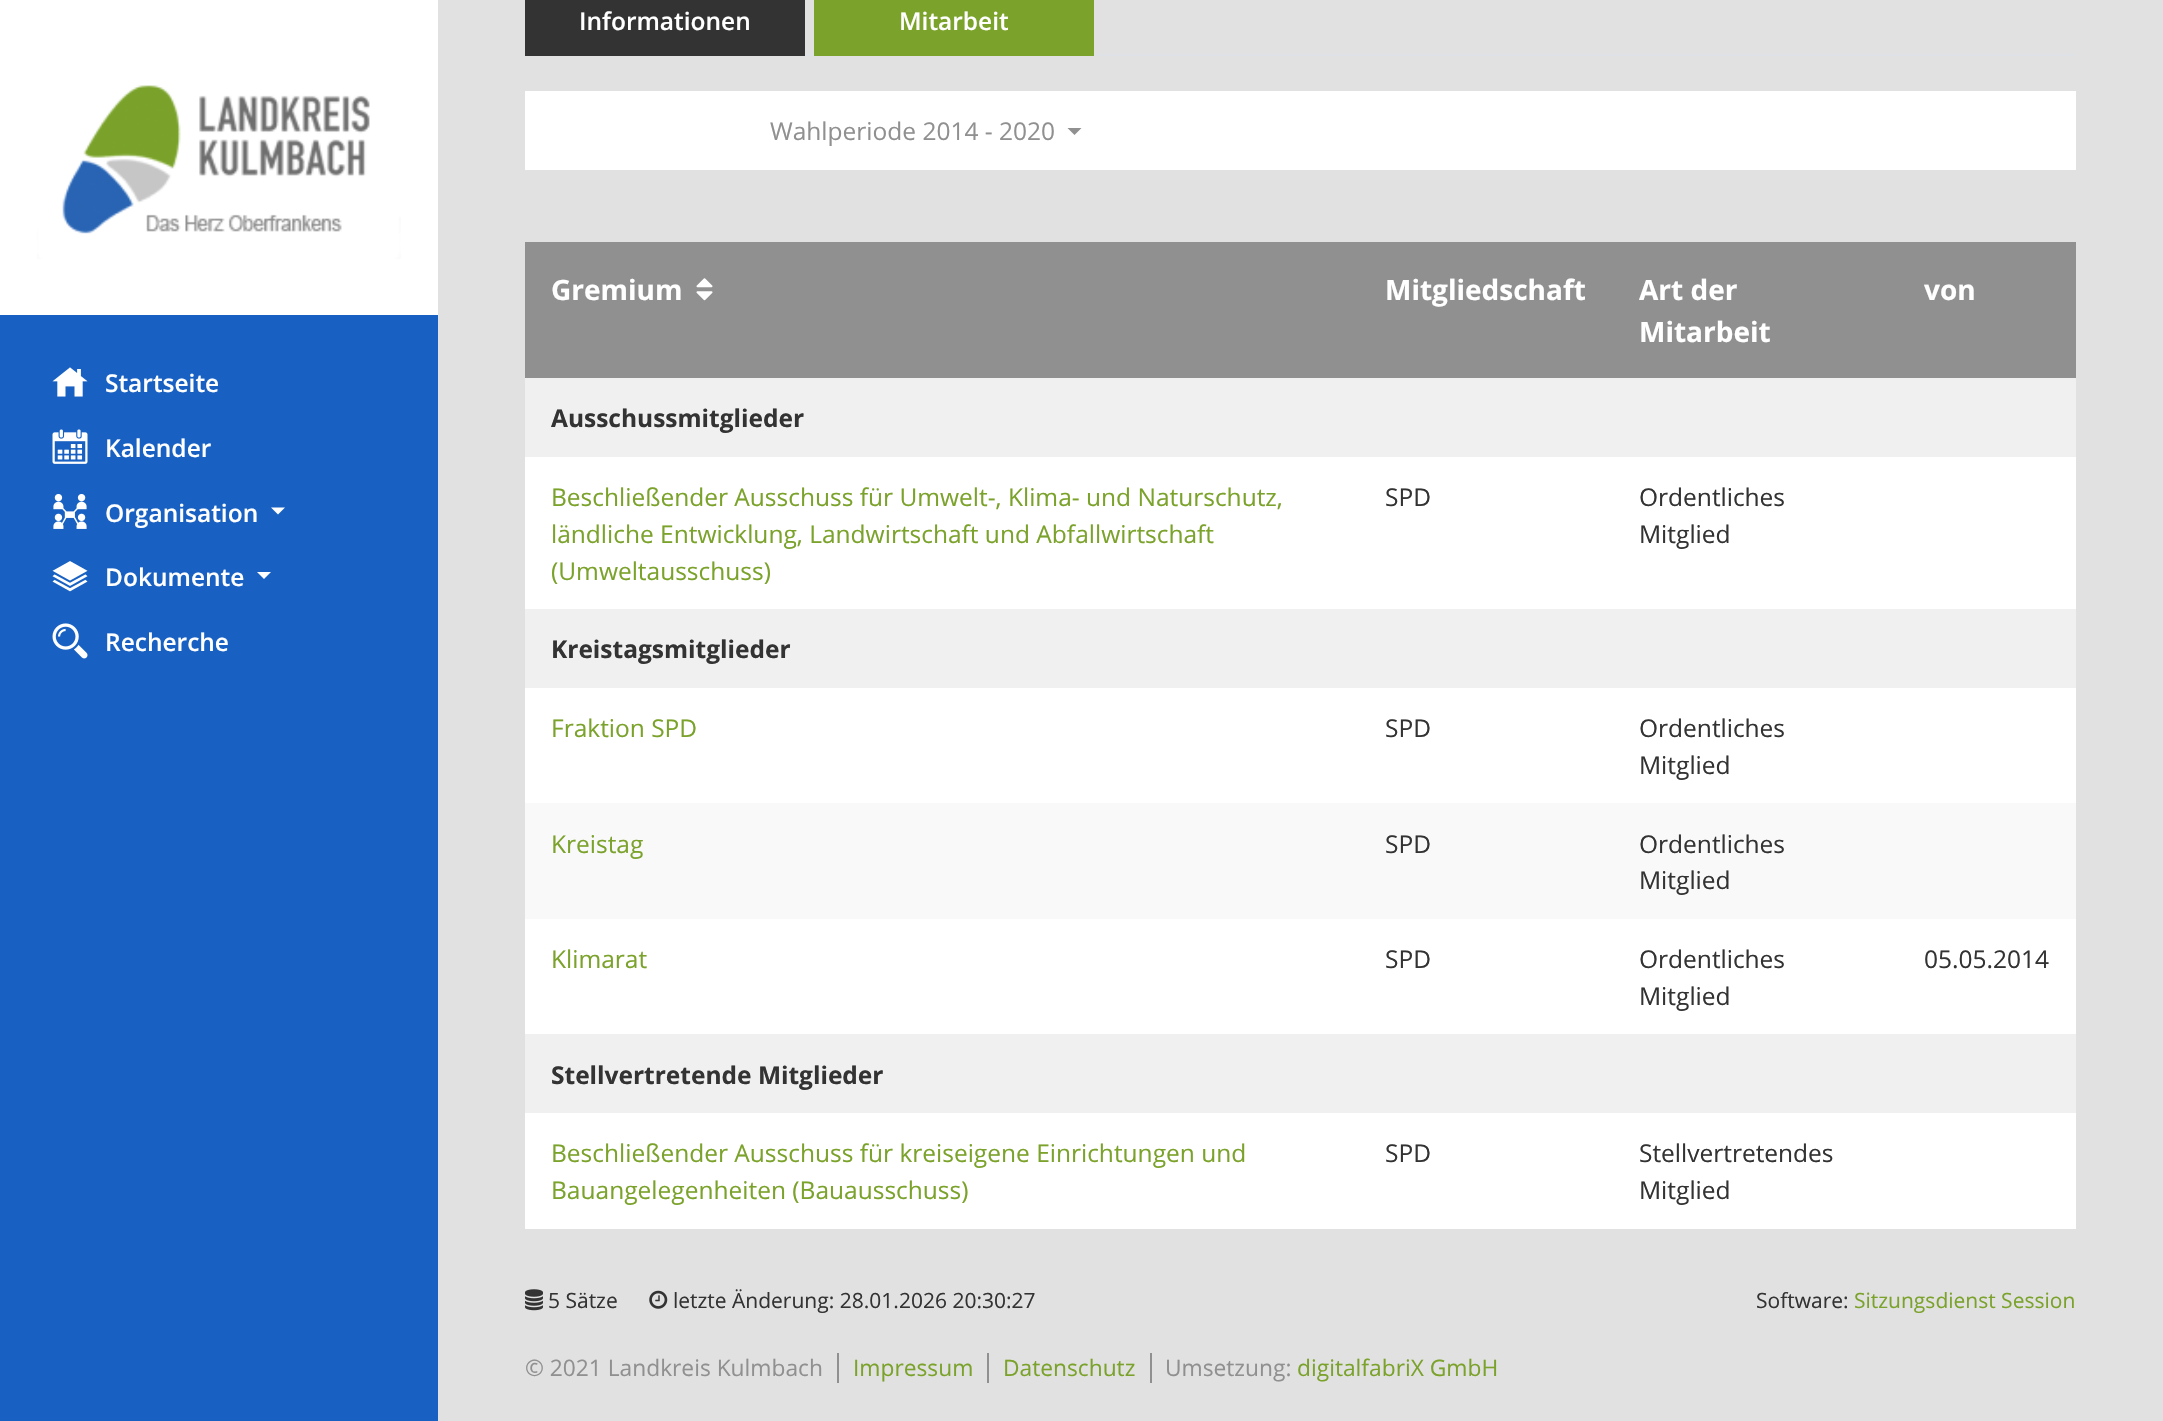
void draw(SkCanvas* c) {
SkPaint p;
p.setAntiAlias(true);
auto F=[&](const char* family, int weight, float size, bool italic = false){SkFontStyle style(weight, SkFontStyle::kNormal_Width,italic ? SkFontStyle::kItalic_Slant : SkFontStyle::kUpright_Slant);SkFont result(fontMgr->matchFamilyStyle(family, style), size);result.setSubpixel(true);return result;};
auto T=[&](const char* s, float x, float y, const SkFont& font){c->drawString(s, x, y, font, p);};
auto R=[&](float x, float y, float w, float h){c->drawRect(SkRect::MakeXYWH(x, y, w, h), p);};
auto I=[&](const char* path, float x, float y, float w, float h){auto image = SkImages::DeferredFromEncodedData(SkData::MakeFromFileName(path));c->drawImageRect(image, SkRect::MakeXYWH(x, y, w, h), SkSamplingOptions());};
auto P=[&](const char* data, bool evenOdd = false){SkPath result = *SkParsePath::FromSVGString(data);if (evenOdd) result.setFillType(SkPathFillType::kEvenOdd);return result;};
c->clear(0xffe1e1e1);
p.setColor(0xff1861c2);
R(0,315,438,1106);
p.setColor(0xffffffff);
R(0,0,438,315);
I("1.png",37,85,364,174);
I("2.png",52,367,36,30);
auto f1 = F("Open Sans",600,24.5);
T("Startseite",105,392,f1);
I("3.png",52,429,36,35);
T("Kalender",105,457,f1);
I("4.png",53,494,34,35);
T("Organisation",105,522,f1);
c->drawPath(P("M271 507.5h14l-7 7z"),p);
I("5.png",52,561,36,31);
T("Dokumente",105,586,f1);
c->drawPath(P("M257 572h14l-7 7z"),p);
I("6.png",52,623,36,36);
T("Recherche",105,651,f1);
p.setColor(0xffdee2e6);
R(805,54,1271,2);
p.setColor(0xff333333);
R(525,0,280,56);
p.setColor(0xffffffff);
T("Informationen",579,30,f1);
p.setColor(0xff7ba22b);
R(814,0,280,56);
p.setColor(0xffffffff);
T("Mitarbeit",899,30,f1);
R(525,91,1551,79);
auto f2 = F("Open Sans",400,24.5);
p.setColor(0xff909090);
T("Wahlperiode 2014 - 2020",770,140,f2);
c->drawPath(P("M1067.5 128h14l-7 7z"),p);
p.setColor(0xffffffff);
R(525,457,1551,772);
p.setColor(0xff909090);
R(525,242,1551,136);
auto f3 = F("Open Sans",700,28);
p.setColor(0xffffffff);
T("Gremium",551,300,f3);
I("7.png",696,278,17,23);
T("Mitgliedschaft",1385,300,f3);
T("Art der",1639,300,f3);
T("Mitarbeit",1639,342,f3);
T("von",1924,300,f3);
p.setColor(0xfff0f0f0);
R(525,378,1551,79);
auto f4 = F("Open Sans",700,24.5);
p.setColor(0xff333333);
T("Ausschussmitglieder",551,427,f4);
p.setColor(0xff7ba22b);
T("Beschließender Ausschuss für Umwelt-, Klima- und Naturschutz,",551,506,f2);
T("ländliche Entwicklung, Landwirtschaft und Abfallwirtschaft",551,543,f2);
T("(Umweltausschuss)",551,580,f2);
p.setColor(0xff333333);
T("SPD",1385,506,f2);
T("Ordentliches",1639,506,f2);
T("Mitglied",1639,543,f2);
p.setColor(0xfff0f0f0);
R(525,609,1551,79);
p.setColor(0xff333333);
T("Kreistagsmitglieder",551,658,f4);
p.setColor(0xff7ba22b);
T("Fraktion SPD",551,737,f2);
p.setColor(0xff333333);
T("SPD",1385,737,f2);
T("Ordentliches",1639,737,f2);
T("Mitglied",1639,774,f2);
p.setColor(0xfff9f9f9);
R(525,803,1551,116);
p.setColor(0xff7ba22b);
T("Kreistag",551,853,f2);
p.setColor(0xff333333);
T("SPD",1385,853,f2);
T("Ordentliches",1639,853,f2);
T("Mitglied",1639,889,f2);
p.setColor(0xff7ba22b);
T("Klimarat",551,968,f2);
p.setColor(0xff333333);
T("SPD",1385,968,f2);
T("Ordentliches",1639,968,f2);
T("Mitglied",1639,1005,f2);
T("05.05.2014",1924,968,f2);
p.setColor(0xfff0f0f0);
R(525,1034,1551,79);
p.setColor(0xff333333);
T("Stellvertretende Mitglieder",551,1084,f4);
p.setColor(0xff7ba22b);
T("Beschließender Ausschuss für kreiseigene Einrichtungen und",551,1162,f2);
T("Bauangelegenheiten (Bauausschuss)",551,1199,f2);
p.setColor(0xff333333);
T("SPD",1385,1162,f2);
T("Stellvertretendes",1639,1162,f2);
T("Mitglied",1639,1199,f2);
I("8.png",525,1289,18,22);
auto f5 = F("Open Sans",400,21);
T("5 Sätze",548,1308,f5);
I("9.png",649,1290,19,19);
T("letzte Änderung: 28.01.2026 20:30:27",673,1308,f5);
T("Software:",1756,1308,f5);
p.setColor(0xff7ba22b);
T("Sitzungsdienst Session",1854,1308,f5);
auto f6 = F("Open Sans",400,22.75);
p.setColor(0xff909090);
T("© 2021 Landkreis Kulmbach",525,1376,f6);
R(837,1353,2,30);
p.setColor(0xff7ba22b);
T("Impressum",853,1376,f6);
p.setColor(0xff909090);
R(987,1353,2,30);
p.setColor(0xff7ba22b);
T("Datenschutz",1003,1376,f6);
p.setColor(0xff909090);
R(1150,1353,2,30);
T("Umsetzung:",1165,1376,f6);
p.setColor(0xff7ba22b);
T("digitalfabriX GmbH",1297,1376,f6);
}
